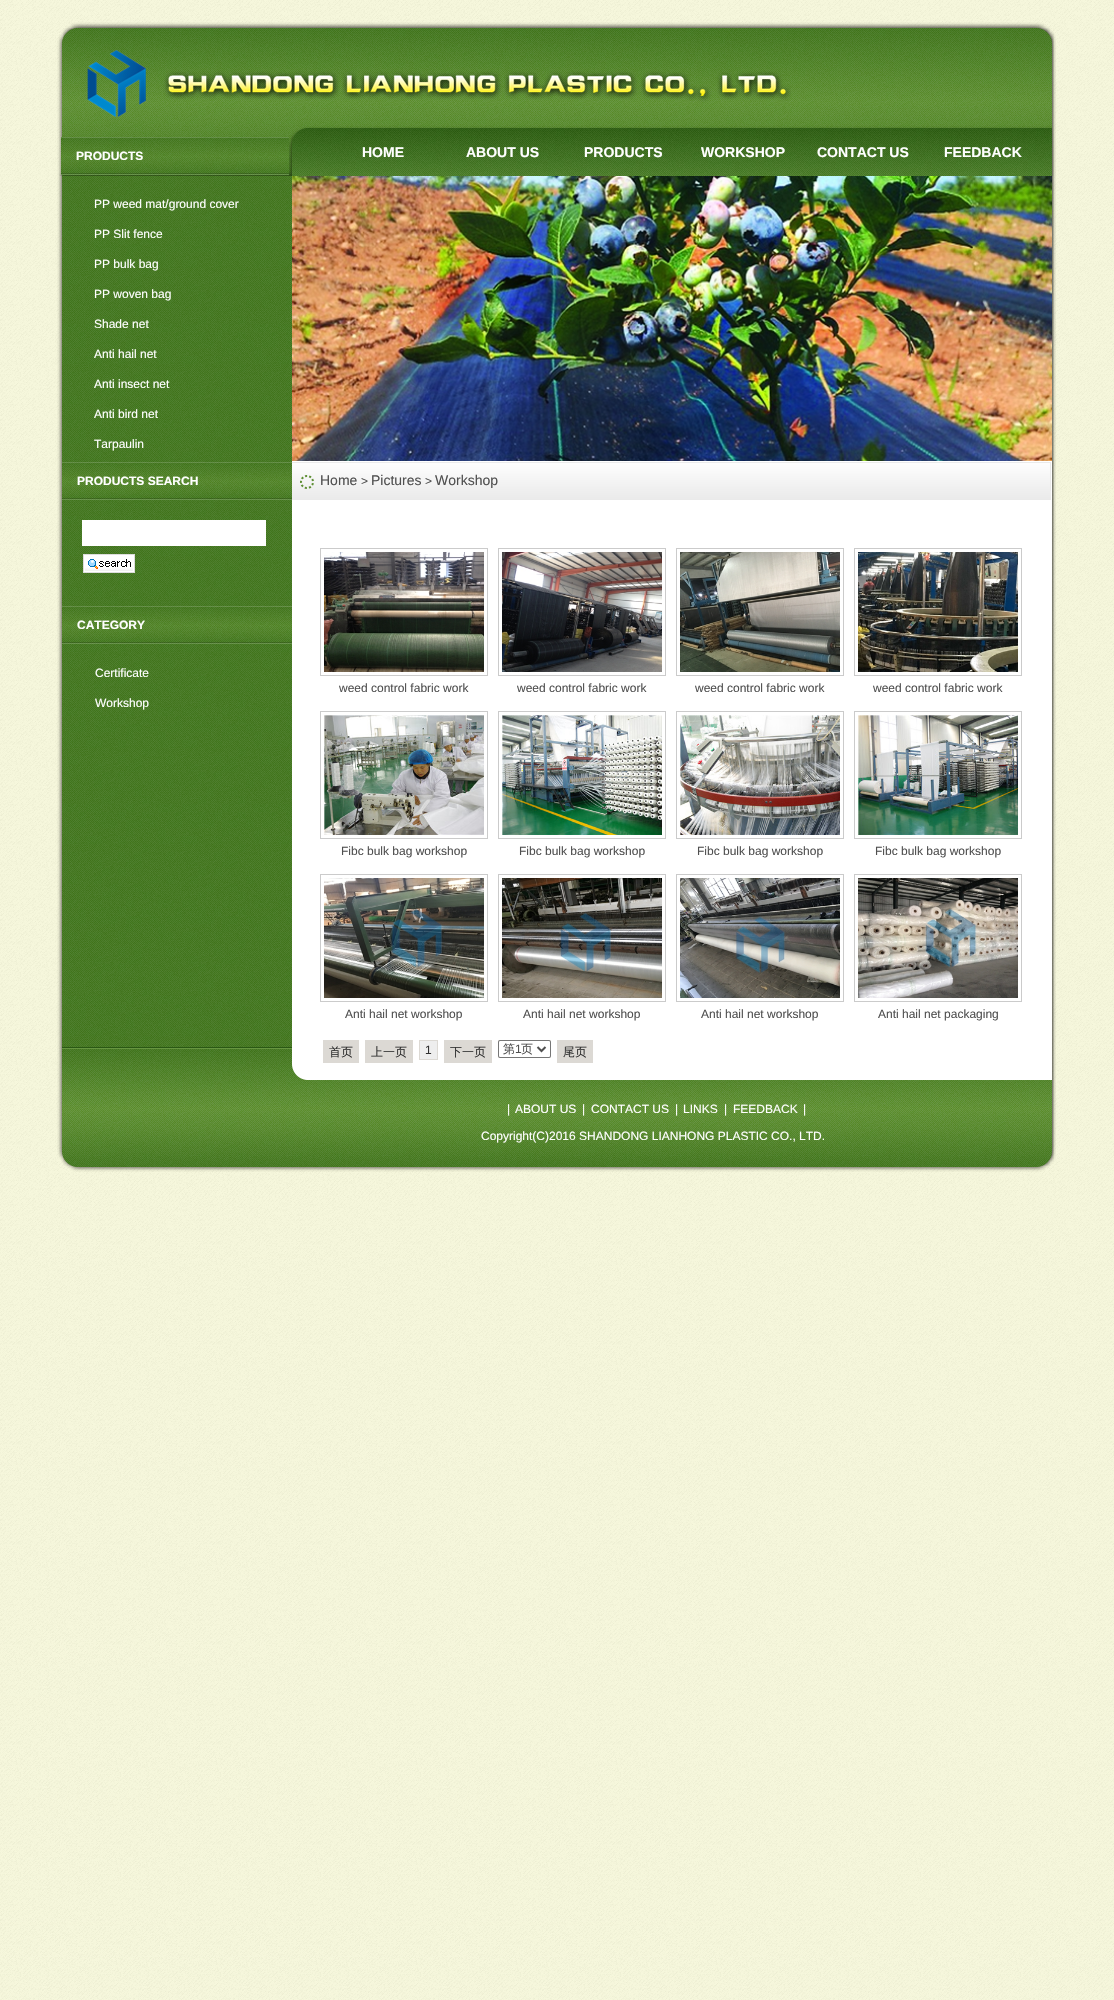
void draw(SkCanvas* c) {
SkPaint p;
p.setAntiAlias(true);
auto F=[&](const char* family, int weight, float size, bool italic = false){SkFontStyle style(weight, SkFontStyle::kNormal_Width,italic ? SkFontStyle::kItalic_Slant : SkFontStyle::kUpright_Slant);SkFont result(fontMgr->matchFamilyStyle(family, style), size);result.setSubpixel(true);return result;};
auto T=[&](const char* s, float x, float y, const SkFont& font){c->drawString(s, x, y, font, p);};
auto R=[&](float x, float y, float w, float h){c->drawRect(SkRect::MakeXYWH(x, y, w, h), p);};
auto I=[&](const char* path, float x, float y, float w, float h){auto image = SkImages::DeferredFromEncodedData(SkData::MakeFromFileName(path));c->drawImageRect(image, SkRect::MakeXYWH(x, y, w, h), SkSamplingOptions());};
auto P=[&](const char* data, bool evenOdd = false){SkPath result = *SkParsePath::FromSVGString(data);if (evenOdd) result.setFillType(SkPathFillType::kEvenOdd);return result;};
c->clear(0xffffffff);
I("1.png",0,0,1114,2000);
I("2.png",56,176,1002,871);
I("3.png",56,0,1002,176);
I("4.png",87,50,704,67);
I("5.png",61,137,228,38);
auto f1 = F("Liberation Sans",700,12);
p.setColor(0xffffffff);
T("PRODUCTS",76,160,f1);
auto f2 = F("Liberation Sans",400,12);
T("PP weed mat/ground cover",94,208,f2);
T("PP Slit fence",94,238,f2);
T("PP bulk bag",94,268,f2);
T("PP woven bag",94,298,f2);
T("Shade net",94,328,f2);
T("Anti hail net",94,358,f2);
T("Anti insect net",94,388,f2);
T("Anti bird net",94,418,f2);
T("Tarpaulin",94,448,f2);
auto f3 = F("Liberation Sans",700,14);
T("HOME",362,157,f3);
T("ABOUT US",466,157,f3);
T("PRODUCTS",584,157,f3);
T("WORKSHOP",701,157,f3);
T("CONTACT US",817,157,f3);
T("FEEDBACK",944,157,f3);
I("6.png",292,176,760,285);
I("7.png",62,462,230,38);
T("PRODUCTS SEARCH",77,485,f1);
R(82,520,184,26);
I("8.png",83,554,52,19);
I("9.png",292,462,759,38);
auto f4 = F("Liberation Sans",400,14);
p.setColor(0xff505050);
T("Home",320,485,f4);
T(">",361,485,f2);
T("Pictures",371,485,f4);
T(">",425,485,f2);
T("Workshop",435,485,f4);
p.setColor(0xffeaeaea);
R(1050,463,1,28);
I("7.png",62,606,230,38);
p.setColor(0xffffffff);
T("CATEGORY",77,629,f1);
T("Certificate",95,677,f2);
T("Workshop",95,707,f2);
p.setStroke(true);
p.setStrokeWidth(1);
p.setColor(0xffcbcbcb);
c->drawRect(SkRect::MakeXYWH(320.5,548.5,167,127),p);
I("10.png",324,552,160,120);
p.setStroke(false);
p.setColor(0xff505050);
T("weed control fabric work",339,692,f2);
p.setStroke(true);
p.setColor(0xffcbcbcb);
c->drawRect(SkRect::MakeXYWH(498.5,548.5,167,127),p);
I("11.png",502,552,160,120);
p.setStroke(false);
p.setColor(0xff505050);
T("weed control fabric work",517,692,f2);
p.setStroke(true);
p.setColor(0xffcbcbcb);
c->drawRect(SkRect::MakeXYWH(676.5,548.5,167,127),p);
I("12.png",680,552,160,120);
p.setStroke(false);
p.setColor(0xff505050);
T("weed control fabric work",695,692,f2);
p.setStroke(true);
p.setColor(0xffcbcbcb);
c->drawRect(SkRect::MakeXYWH(854.5,548.5,167,127),p);
I("13.png",858,552,160,120);
p.setStroke(false);
p.setColor(0xff505050);
T("weed control fabric work",873,692,f2);
p.setStroke(true);
p.setColor(0xffcbcbcb);
c->drawRect(SkRect::MakeXYWH(320.5,711.5,167,127),p);
I("14.png",324,715,160,120);
p.setStroke(false);
p.setColor(0xff505050);
T("Fibc bulk bag workshop",341,855,f2);
p.setStroke(true);
p.setColor(0xffcbcbcb);
c->drawRect(SkRect::MakeXYWH(498.5,711.5,167,127),p);
I("15.png",502,715,160,120);
p.setStroke(false);
p.setColor(0xff505050);
T("Fibc bulk bag workshop",519,855,f2);
p.setStroke(true);
p.setColor(0xffcbcbcb);
c->drawRect(SkRect::MakeXYWH(676.5,711.5,167,127),p);
I("16.png",680,715,160,120);
p.setStroke(false);
p.setColor(0xff505050);
T("Fibc bulk bag workshop",697,855,f2);
p.setStroke(true);
p.setColor(0xffcbcbcb);
c->drawRect(SkRect::MakeXYWH(854.5,711.5,167,127),p);
I("17.png",858,715,160,120);
p.setStroke(false);
p.setColor(0xff505050);
T("Fibc bulk bag workshop",875,855,f2);
p.setStroke(true);
p.setColor(0xffcbcbcb);
c->drawRect(SkRect::MakeXYWH(320.5,874.5,167,127),p);
I("18.png",324,878,160,120);
p.setStroke(false);
p.setColor(0xff505050);
T("Anti hail net workshop",345,1018,f2);
p.setStroke(true);
p.setColor(0xffcbcbcb);
c->drawRect(SkRect::MakeXYWH(498.5,874.5,167,127),p);
I("19.png",502,878,160,120);
p.setStroke(false);
p.setColor(0xff505050);
T("Anti hail net workshop",523,1018,f2);
p.setStroke(true);
p.setColor(0xffcbcbcb);
c->drawRect(SkRect::MakeXYWH(676.5,874.5,167,127),p);
I("20.png",680,878,160,120);
p.setStroke(false);
p.setColor(0xff505050);
T("Anti hail net workshop",701,1018,f2);
p.setStroke(true);
p.setColor(0xffcbcbcb);
c->drawRect(SkRect::MakeXYWH(854.5,874.5,167,127),p);
I("21.png",858,878,160,120);
p.setStroke(false);
p.setColor(0xff505050);
T("Anti hail net packaging",878,1018,f2);
I("22.png",56,1047,1002,150);
p.setColor(0xffdcd9d4);
R(323,1040,36,23);
auto f5 = F("WenQuanYi Zen Hei",500,12);
p.setColor(0xff303030);
T("首页",329,1056,f5);
p.setColor(0xffdcd9d4);
R(365,1040,48,23);
p.setColor(0xff303030);
T("上一页",371,1056,f5);
p.setColor(0xffeeeeee);
c->drawRect(SkRect::MakeXYWH(419.5,1040.5,18,19),p);
p.setStroke(true);
p.setColor(0xffdcd9d4);
c->drawRect(SkRect::MakeXYWH(419.5,1040.5,18,19),p);
p.setStroke(false);
p.setColor(0xff303030);
T("1",425,1054,f2);
p.setColor(0xffdcd9d4);
R(444,1040,48,23);
p.setColor(0xff303030);
T("下一页",450,1056,f5);
p.setColor(0xffdcd9d4);
R(498,1040,53,18);
p.setColor(0xffffffff);
c->drawRoundRect(SkRect::MakeXYWH(498.5,1040.5,52,17),1.5,1.5,p);
p.setStroke(true);
p.setColor(0xff767676);
c->drawRoundRect(SkRect::MakeXYWH(498.5,1040.5,52,17),1.5,1.5,p);
p.setStrokeWidth(2);
p.setColor(0xff505050);
c->drawPath(P("M537.5 1047l4 4l4-4"),p);
p.setStroke(false);
T("第",503,1053,f5);
T("1",515,1053,f2);
T("页",521,1053,f5);
p.setColor(0xffdcd9d4);
R(557,1040,36,23);
p.setColor(0xff303030);
T("尾页",563,1056,f5);
p.setColor(0xffffffff);
T("|",507,1113,f2);
T("ABOUT US",515,1113,f2);
T("|",582,1113,f2);
T("CONTACT US",591,1113,f2);
T("|",675,1113,f2);
T("LINKS",683,1113,f2);
T("|",724,1113,f2);
T("FEEDBACK",733,1113,f2);
T("|",803,1113,f2);
T("Copyright(C)2016 SHANDONG LIANHONG PLASTIC CO., LTD.",481,1140,f2);
}
